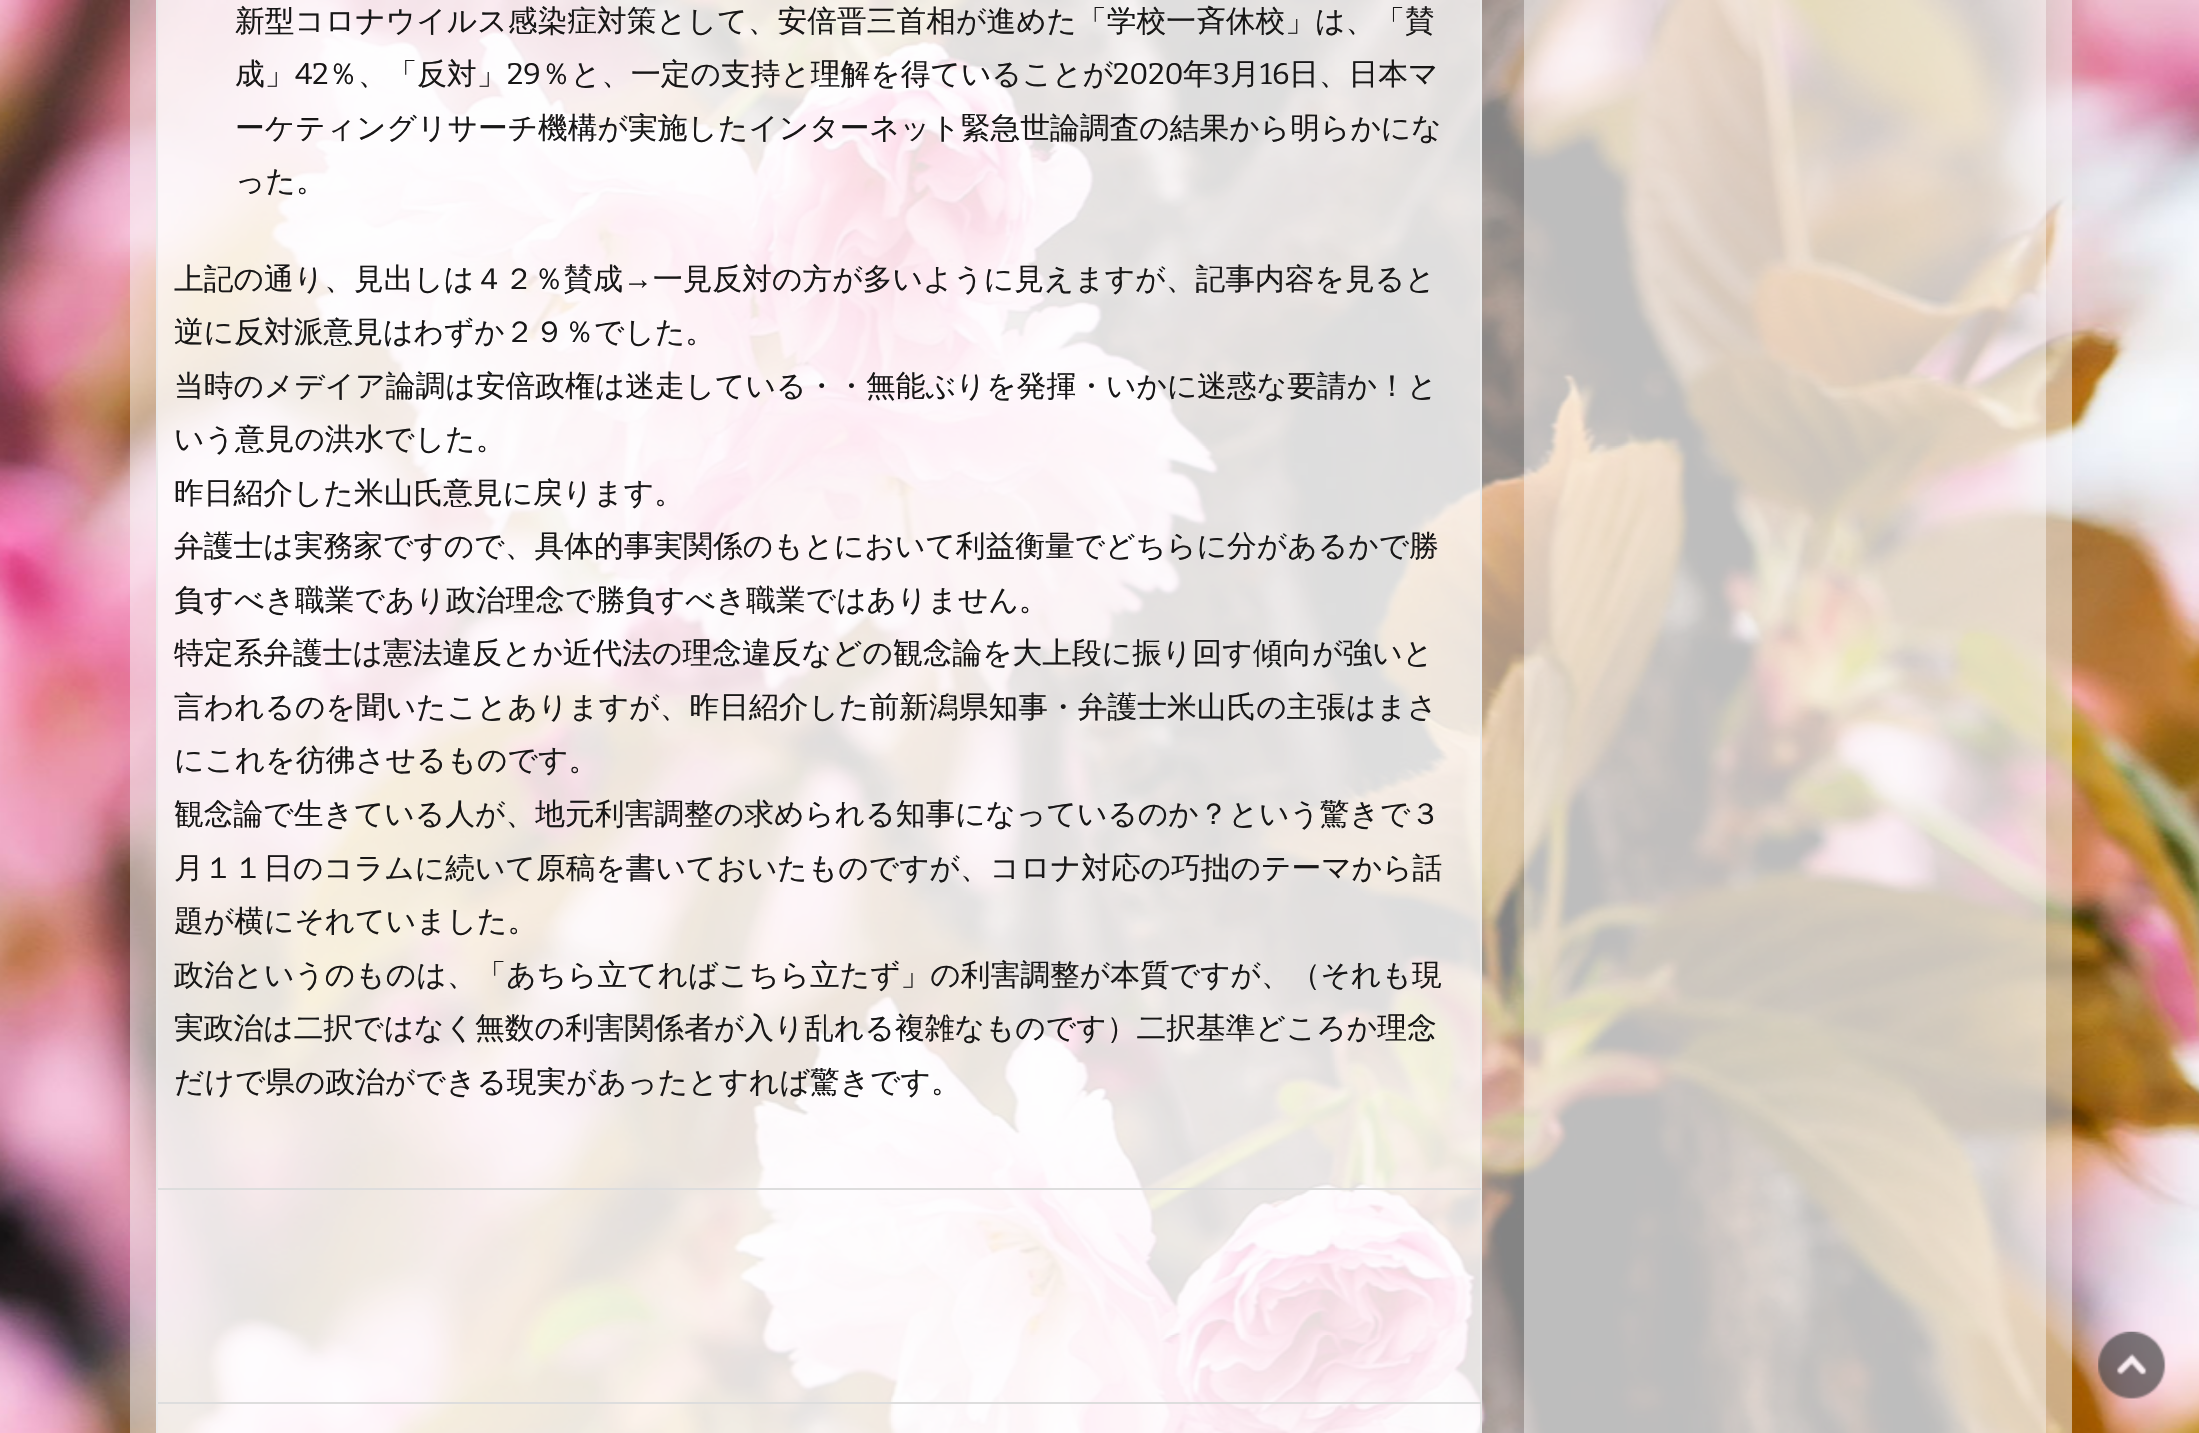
void draw(SkCanvas* c) {
SkPaint p;
p.setAntiAlias(true);
auto F=[&](const char* family, int weight, float size, bool italic = false){SkFontStyle style(weight, SkFontStyle::kNormal_Width,italic ? SkFontStyle::kItalic_Slant : SkFontStyle::kUpright_Slant);SkFont result(fontMgr->matchFamilyStyle(family, style), size);result.setSubpixel(true);return result;};
auto T=[&](const char* s, float x, float y, const SkFont& font){c->drawString(s, x, y, font, p);};
auto R=[&](float x, float y, float w, float h){c->drawRect(SkRect::MakeXYWH(x, y, w, h), p);};
auto I=[&](const char* path, float x, float y, float w, float h){auto image = SkImages::DeferredFromEncodedData(SkData::MakeFromFileName(path));c->drawImageRect(image, SkRect::MakeXYWH(x, y, w, h), SkSamplingOptions());};
c->clear(0xffffffff);
I("1.png",0,0,2199,1433);
p.setColor(0x87f9f9f9);
R(130,0,1942,1433);
p.setColor(0x4fffffff);
R(158,0,1322,1433);
p.setColor(0x99ffffff);
c->drawRect(SkRect::MakeXYWH(157,-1,1324,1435),p);
p.setStroke(true);
p.setStrokeWidth(2);
p.setColor(0xffe9e9e9);
c->drawRect(SkRect::MakeXYWH(157,-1,1324,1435),p);
auto f1 = F("WenQuanYi Zen Hei",500,29.75);
p.setStroke(false);
p.setColor(0xff181717);
T("新型コロナウイルス感染症対策として、安倍晋三首相が進めた「学校一斉休校」は、「賛",235,31,f1);
T("成」",235,84,f1);
auto f2 = F("Bitter",100,29.75);
T("42",295,84,f2);
T("％、「反対」",328,84,f1);
T("29",507,84,f2);
T("％と、一定の支持と理解を得ていることが",541,84,f1);
T("2020",1113,84,f2);
T("年",1183,84,f1);
T("3",1213,84,f2);
T("月",1230,84,f1);
T("16",1260,84,f2);
T("日、日本マ",1289,84,f1);
T("ーケティングリサーチ機構が実施したインターネット緊急世論調査の結果から明らかにな",235,138,f1);
T("った。",235,191,f1);
T("上記の通り、見出しは４２％賛成",174,289,f1);
auto f3 = F("Liberation Serif",400,29.75);
T("→",623,289,f3);
T("一見反対の方が多いように見えますが、記事内容を見ると",653,289,f1);
T("逆に反対派意見はわずか２９％でした。",174,342,f1);
T("当時のメデイア論調は安倍政権は迷走している・・無能ぶりを発揮・いかに迷惑な要請か！と",174,396,f1);
T("いう意見の洪水でした。",174,449,f1);
T("昨日紹介した米山氏意見に戻ります。",174,503,f1);
T("弁護士は実務家ですので、具体的事実関係のもとにおいて利益衡量でどちらに分があるかで勝",174,556,f1);
T("負すべき職業であり政治理念で勝負すべき職業ではありません。",174,610,f1);
T("特定系弁護士は憲法違反とか近代法の理念違反などの観念論を大上段に振り回す傾向が強いと",174,663,f1);
T("言われるのを聞いたことありますが、昨日紹介した前新潟県知事・弁護士米山氏の主張はまさ",174,717,f1);
T("にこれを彷彿させるものです。",174,770,f1);
T("観念論で生きている人が、地元利害調整の求められる知事になっているのか？という驚きで３",174,824,f1);
T("月１１日のコラムに続いて原稿を書いておいたものですが、コロナ対応の巧拙のテーマから話",174,878,f1);
T("題が横にそれていました。",174,931,f1);
T("政治というのものは、「あちら立てればこちら立たず」の利害調整が本質ですが、（それも現",174,985,f1);
T("実政治は二択ではなく無数の利害関係者が入り乱れる複雑なものです）二択基準どころか理念",174,1038,f1);
T("だけで県の政治ができる現実があったとすれば驚きです。",174,1092,f1);
p.setColor(0xffdddddd);
R(158,1188,1323,2);
R(158,1402,1323,2);
p.setColor(0x75ffffff);
R(1524,0,522,1433);
I("2.png",2098,1331,68,68);
}
